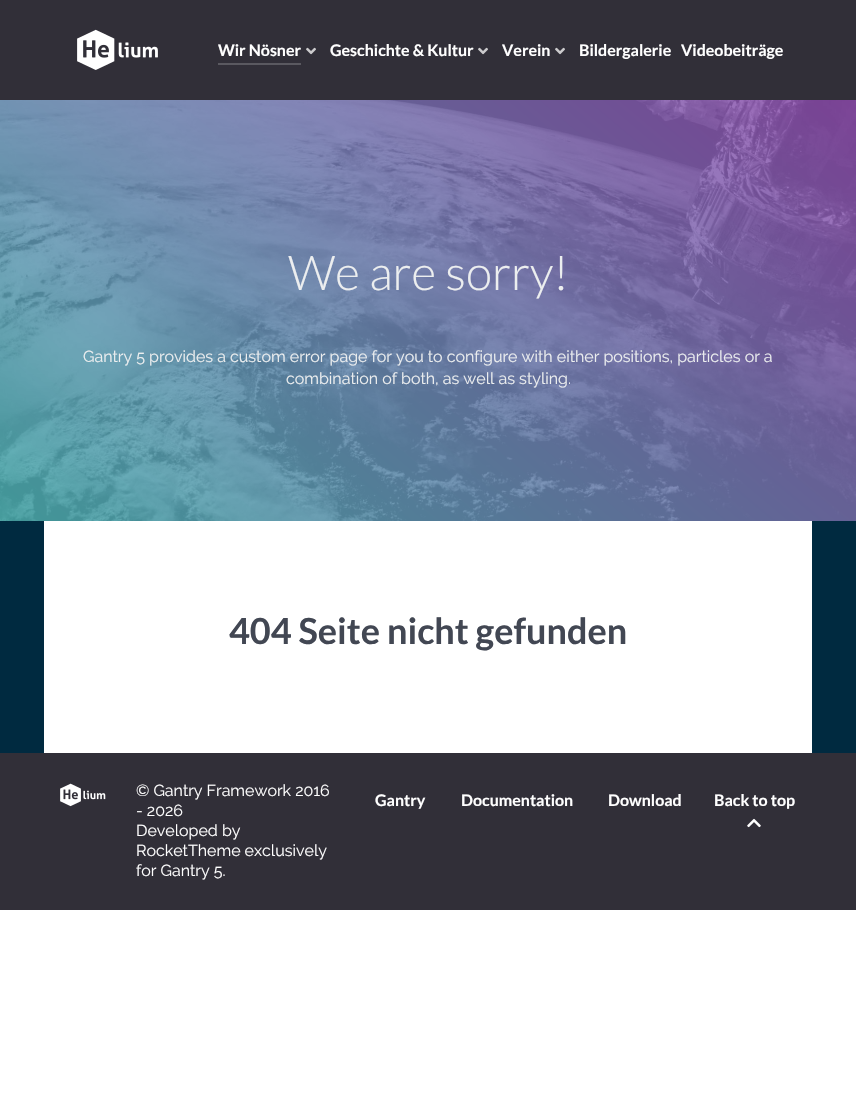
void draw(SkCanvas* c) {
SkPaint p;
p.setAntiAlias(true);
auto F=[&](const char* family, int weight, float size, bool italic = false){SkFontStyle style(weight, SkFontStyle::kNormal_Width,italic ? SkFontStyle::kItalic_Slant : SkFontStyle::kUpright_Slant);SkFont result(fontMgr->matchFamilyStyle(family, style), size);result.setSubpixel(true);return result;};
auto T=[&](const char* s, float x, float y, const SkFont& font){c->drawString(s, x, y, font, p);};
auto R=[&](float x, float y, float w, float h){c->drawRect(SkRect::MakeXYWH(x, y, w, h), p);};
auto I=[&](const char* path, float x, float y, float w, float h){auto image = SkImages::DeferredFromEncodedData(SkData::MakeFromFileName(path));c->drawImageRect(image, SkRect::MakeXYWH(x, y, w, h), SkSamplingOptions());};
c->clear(0xffffffff);
p.setColor(0xff312f38);
R(0,0,856,100);
I("1.png",77,29,81,41);
p.setColor(0xff5a5960);
R(218,63,83,2);
auto f1 = F("Lato",700,16);
p.setColor(0xffffffff);
T("Wir Nösner",218,56,f1);
I("2.png",306,47,10,8);
T("Geschichte & Kultur",330,56,f1);
I("2.png",478,47,10,8);
T("Verein",502,56,f1);
I("2.png",555,47,10,8);
T("Bildergalerie",579,56,f1);
T("Videobeiträge",681,56,f1);
I("3.png",0,100,856,421);
auto f2 = F("Lato",300,48);
p.setColor(0xffeceeef);
T("We are sorry!",288,290,f2);
auto f3 = F("Raleway",400,16);
T("Gantry 5 provides a custom error page for you to configure with either positions, particles or a",83,362,f3);
T("combination of both, as well as styling.",286,384,f3);
p.setColor(0xff002a40);
R(0,521,856,232);
p.setColor(0xffffffff);
R(44,521,768,232);
auto f4 = F("Lato",700,36);
p.setColor(0xff424753);
T("404 Seite nicht gefunden",229,644,f4);
p.setColor(0xff312f38);
R(0,753,856,157);
I("4.png",60,783,46,24);
p.setColor(0xffffffff);
T("© Gantry Framework 2016",136,796,f3);
T("- 2026",136,816,f3);
T("Developed by",136,836,f3);
T("RocketTheme exclusively",136,856,f3);
T("for Gantry 5.",136,876,f3);
T("Gantry",375,806,f1);
T("Documentation",461,806,f1);
T("Download",608,806,f1);
T("Back to top",714,806,f1);
I("5.png",747,818,14,10);
}
